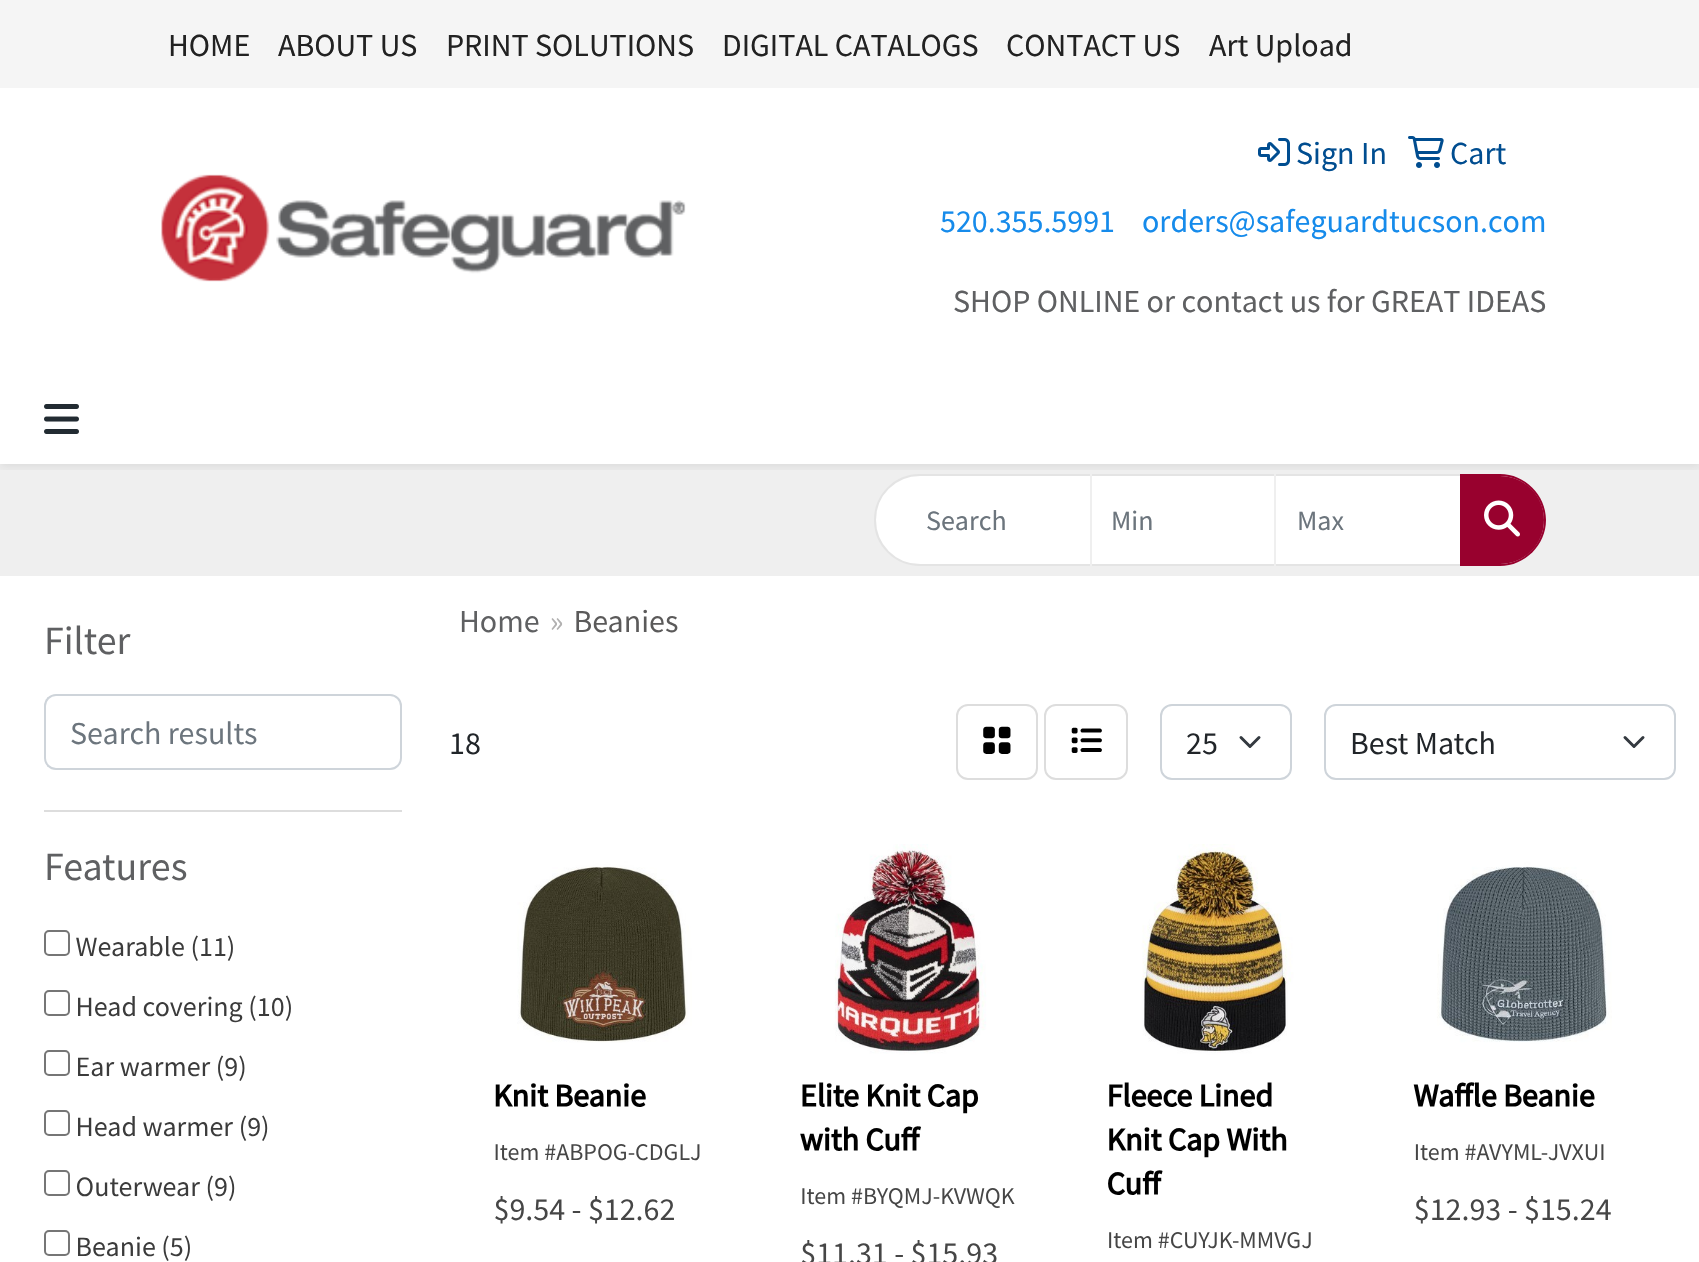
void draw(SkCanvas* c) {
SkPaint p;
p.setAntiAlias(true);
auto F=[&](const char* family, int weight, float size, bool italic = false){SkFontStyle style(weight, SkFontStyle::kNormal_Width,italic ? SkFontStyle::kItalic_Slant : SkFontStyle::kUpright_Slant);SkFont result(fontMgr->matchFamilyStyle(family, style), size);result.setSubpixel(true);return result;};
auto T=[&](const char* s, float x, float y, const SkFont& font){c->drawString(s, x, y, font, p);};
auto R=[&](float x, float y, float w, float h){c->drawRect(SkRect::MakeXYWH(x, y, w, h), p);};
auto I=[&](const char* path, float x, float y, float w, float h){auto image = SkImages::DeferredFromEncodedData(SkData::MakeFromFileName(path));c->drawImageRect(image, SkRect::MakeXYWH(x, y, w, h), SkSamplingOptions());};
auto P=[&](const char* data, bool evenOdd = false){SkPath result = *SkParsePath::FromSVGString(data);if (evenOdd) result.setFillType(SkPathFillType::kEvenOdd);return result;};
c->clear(0xffffffff);
p.setColor(0xfff5f5f5);
R(0,0,1699,88);
auto f1 = F("Source Sans Pro",400,32);
p.setColor(0xff222222);
T("HOME",168,56,f1);
T("ABOUT US",278,56,f1);
T("PRINT SOLUTIONS",446,56,f1);
T("DIGITAL CATALOGS",722,56,f1);
T("CONTACT US",1006,56,f1);
T("Art Upload",1209,56,f1);
I("1.png",161,174,525,108);
I("2.png",1258,138,32,28);
p.setColor(0xff004d90);
T("Sign In",1296,164,f1);
I("3.png",1408,136,36,32);
T("Cart",1450,164,f1);
p.setColor(0xff168beb);
T("520.355.5991",940,232,f1);
T("orders@safeguardtucson.com",1142,232,f1);
p.setColor(0xff5f6062);
T("SHOP ONLINE or contact us for GREAT IDEAS",953,312,f1);
p.setColor(0xffefefef);
R(0,464,1699,112);
c->save();
c->clipRect(SkRect::MakeXYWH(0,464,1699,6));
p.setColor(0x12000000);
p.setMaskFilter(SkMaskFilter::MakeBlur(kNormal_SkBlurStyle, 4));
c->drawRect(SkRect::MakeXYWH(0,380,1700,88),p);
p.setMaskFilter(nullptr);
c->restore();
I("4.png",44,404,35,30);
p.setColor(0xffffffff);
c->drawPath(P("M920 475h171v90h-171c-25 0-45-20-45-45c0-25 20-45 45-45z"),p);
p.setStroke(true);
p.setStrokeWidth(2);
p.setColor(0xffe4e4e4);
c->drawPath(P("M920 475h171v90h-171c-25 0-45-20-45-45c0-25 20-45 45-45z"),p);
auto f2 = F("Source Sans Pro",400,28);
p.setStroke(false);
p.setColor(0xff6c757d);
T("Search",926,530,f2);
p.setColor(0xffffffff);
R(1092,476,182,88);
p.setColor(0xffe4e4e4);
R(1090,474,372,2);
R(1090,564,372,2);
p.setColor(0xffefefef);
R(1090,474,2,92);
p.setColor(0xff6c757d);
T("Min",1111,530,f2);
p.setColor(0xffffffff);
R(1276,476,184,88);
p.setColor(0xffefefef);
R(1274,474,2,92);
p.setColor(0xff6c757d);
T("Max",1297,530,f2);
p.setColor(0xff98012e);
c->drawPath(P("M1460 476h40c24.5 0 44 19.5 44 44c0 24.5-19.5 44-44 44h-40z"),p);
c->drawPath(P("M1460 474h40c25 0 46 21 46 46c0 25-21 46-46 46h-40zm0 2h40c24 0 44 20 44 44c0 24-20 44-44 44h-40z",true),p);
I("5.png",1484,500,36,37);
I("6.png",44,609,1632,653);
}
